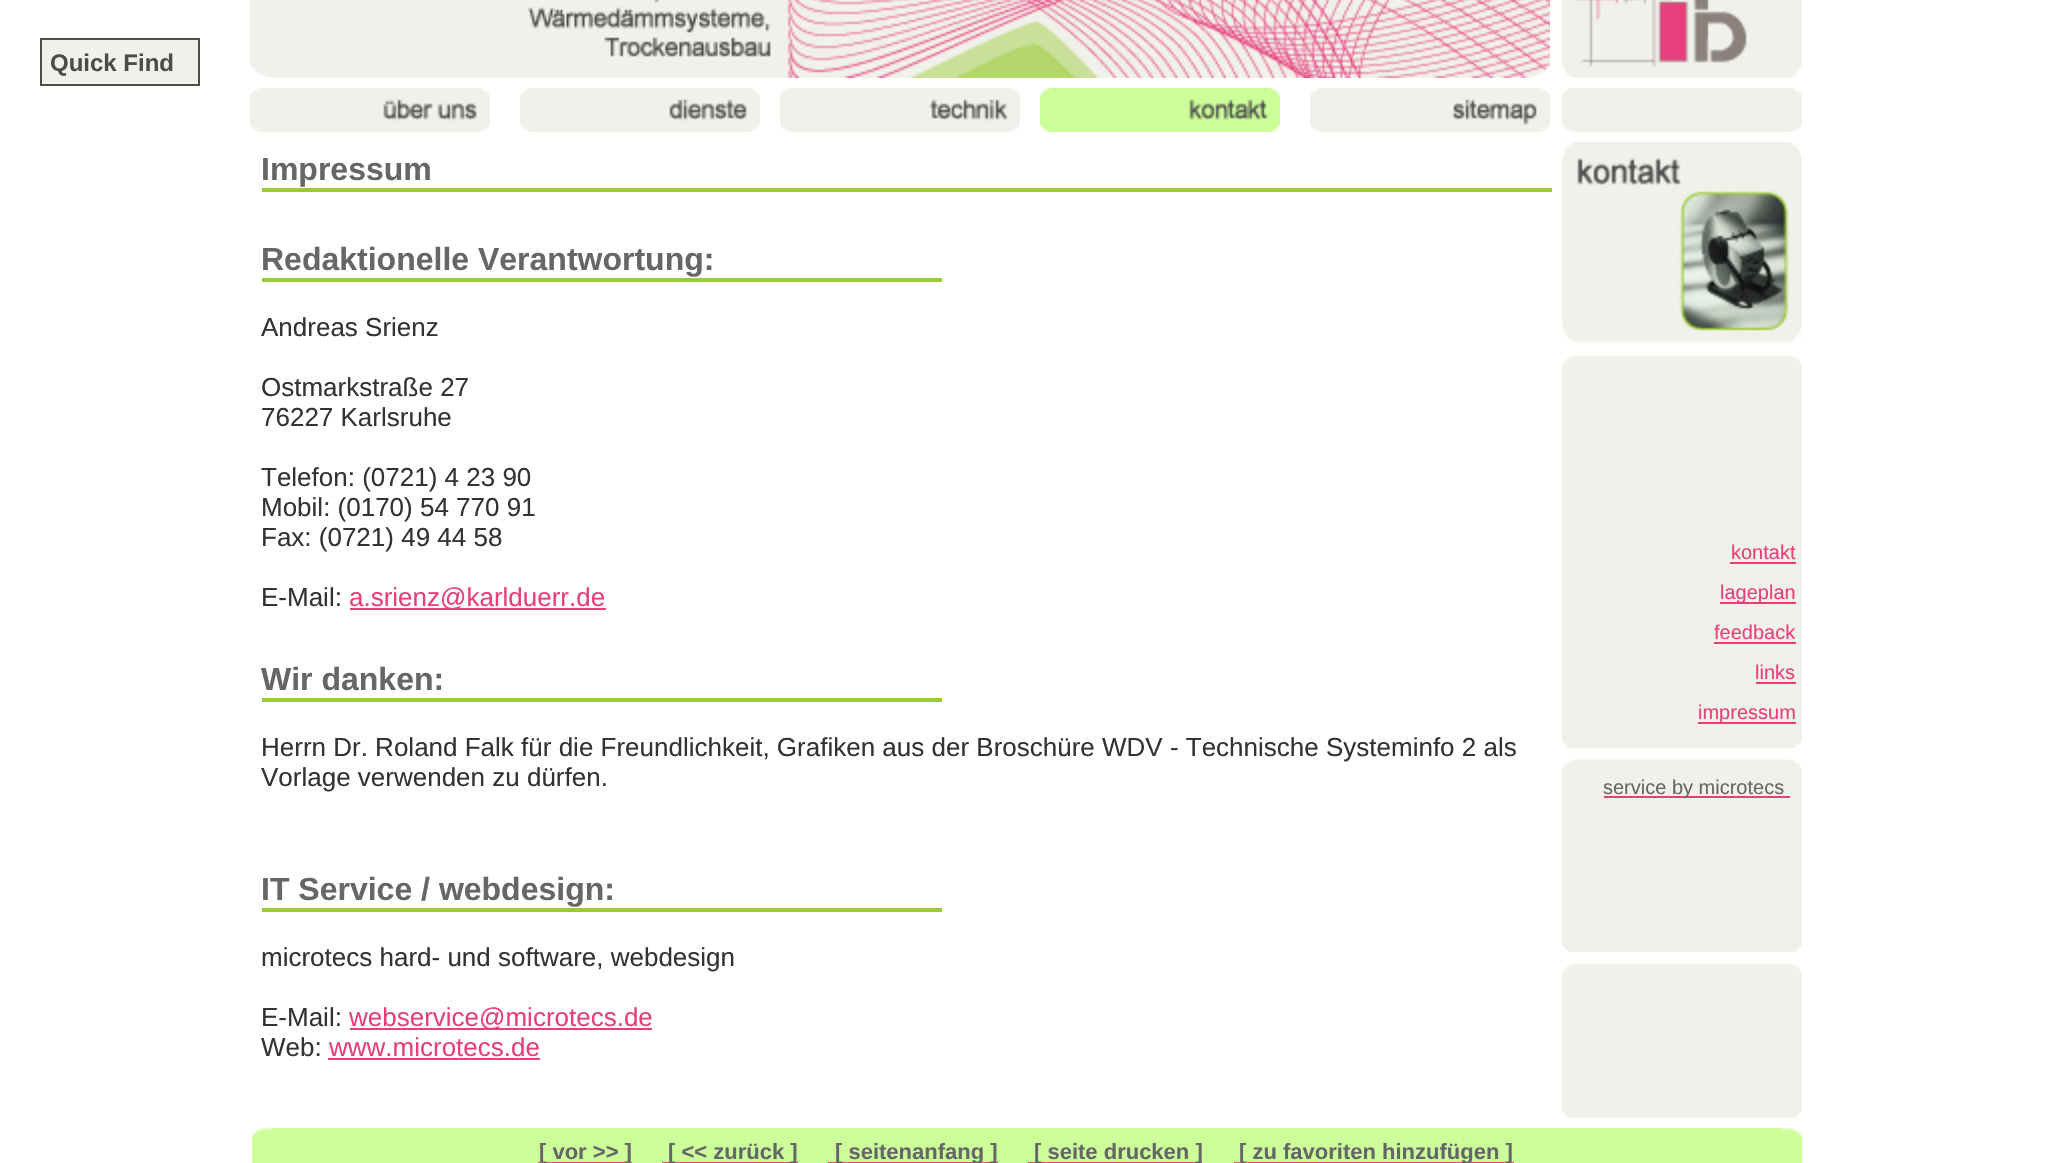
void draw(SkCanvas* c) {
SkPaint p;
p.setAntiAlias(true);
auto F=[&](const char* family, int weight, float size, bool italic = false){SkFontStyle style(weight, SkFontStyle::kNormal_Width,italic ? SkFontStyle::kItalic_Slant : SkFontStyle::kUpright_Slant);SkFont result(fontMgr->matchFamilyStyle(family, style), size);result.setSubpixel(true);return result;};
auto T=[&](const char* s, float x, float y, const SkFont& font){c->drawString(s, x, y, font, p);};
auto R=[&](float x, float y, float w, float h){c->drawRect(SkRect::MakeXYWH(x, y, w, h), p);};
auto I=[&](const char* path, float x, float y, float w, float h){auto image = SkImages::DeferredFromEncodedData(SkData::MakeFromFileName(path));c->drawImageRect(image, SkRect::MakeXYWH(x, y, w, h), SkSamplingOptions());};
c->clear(0xffffffff);
p.setColor(0xff4c4c4b);
R(40,38,160,48);
p.setColor(0xfff1f1eb);
R(42,40,156,44);
auto f1 = F("Liberation Sans",700,24);
p.setColor(0xff4c4c4b);
T("Quick Find",50,71,f1);
I("1.png",250,0,1300,78);
I("2.png",1562,0,240,78);
I("3.png",250,88,240,44);
I("4.png",520,88,240,44);
I("5.png",780,88,240,44);
I("6.png",1040,88,240,44);
I("7.png",1310,88,240,44);
I("8.png",1562,88,240,44);
auto f2 = F("Liberation Sans",700,32);
p.setColor(0xff666666);
T("Impressum",261,180,f2);
p.setColor(0xff99cc33);
R(262,188,1290,4);
p.setColor(0xff666666);
T("Redaktionelle Verantwortung:",261,270,f2);
p.setColor(0xff99cc33);
R(262,278,680,4);
auto f3 = F("Liberation Sans",400,26);
p.setColor(0xff333333);
T("Andreas Srienz",261,336,f3);
T("Ostmarkstraße 27",261,396,f3);
T("76227 Karlsruhe",261,426,f3);
T("Telefon: (0721) 4 23 90",261,486,f3);
T("Mobil: (0170) 54 770 91",261,516,f3);
T("Fax: (0721) 49 44 58",261,546,f3);
T("E-Mail:",261,606,f3);
p.setColor(0xffe73f7b);
R(350,608,256,2);
T("a.srienz@karlduerr.de",349,606,f3);
p.setColor(0xff666666);
T("Wir danken:",261,690,f2);
p.setColor(0xff99cc33);
R(262,698,680,4);
p.setColor(0xff333333);
T("Herrn Dr. Roland Falk für die Freundlichkeit, Grafiken aus der Broschüre WDV - Technische Systeminfo 2 als",261,756,f3);
T("Vorlage verwenden zu dürfen.",261,786,f3);
p.setColor(0xff666666);
T("IT Service / webdesign:",261,900,f2);
p.setColor(0xff99cc33);
R(262,908,680,4);
p.setColor(0xff333333);
T("microtecs hard- und software, webdesign",261,966,f3);
T("E-Mail:",261,1026,f3);
p.setColor(0xffe73f7b);
R(350,1028,302,2);
T("webservice@microtecs.de",349,1026,f3);
p.setColor(0xff333333);
T("Web:",261,1056,f3);
p.setColor(0xffe73f7b);
T("www.microtecs.de",329,1056,f3);
R(328,1058,212,2);
p.setColor(0xfff1f1eb);
R(1562,980,240,122);
I("9.png",1562,142,240,202);
I("10.png",1562,354,240,18);
R(1562,372,240,360);
auto f4 = F("Liberation Sans",400,20);
p.setColor(0xffe73f7b);
T("kontakt",1731,559,f4);
R(1730,562,66,2);
R(1720,602,76,2);
T("lageplan",1720,599,f4);
T("feedback",1714,639,f4);
R(1714,642,82,2);
T("links",1755,679,f4);
R(1756,682,40,2);
R(1698,722,98,2);
T("impressum",1698,719,f4);
I("11.png",1562,732,240,16);
I("10.png",1562,758,240,18);
p.setColor(0xfff1f1eb);
R(1562,776,240,160);
p.setColor(0xffe73f7b);
R(1604,796,186,2);
p.setColor(0xff666666);
T("service by microtecs",1603,794,f4);
I("11.png",1562,936,240,16);
I("10.png",1562,962,240,18);
I("11.png",1562,1102,240,16);
I("12.png",252,1128,20,35);
p.setColor(0xffccff99);
R(272,1128,1510,35);
p.setColor(0xffe73f7b);
R(538,1162,94,1);
auto f5 = F("Liberation Sans",700,22);
p.setColor(0xff666666);
T("[ vor >> ]",539,1159,f5);
p.setColor(0xffe73f7b);
R(662,1162,136,1);
p.setColor(0xff666666);
T("[ << zurück ]",668,1159,f5);
p.setColor(0xffe73f7b);
R(828,1162,170,1);
p.setColor(0xff666666);
T("[ seitenanfang ]",835,1159,f5);
p.setColor(0xffe73f7b);
R(1028,1162,174,1);
p.setColor(0xff666666);
T("[ seite drucken ]",1034,1159,f5);
p.setColor(0xffe73f7b);
R(1234,1162,280,1);
p.setColor(0xff666666);
T("[ zu favoriten hinzufügen ]",1239,1159,f5);
I("13.png",1782,1128,20,35);
}
